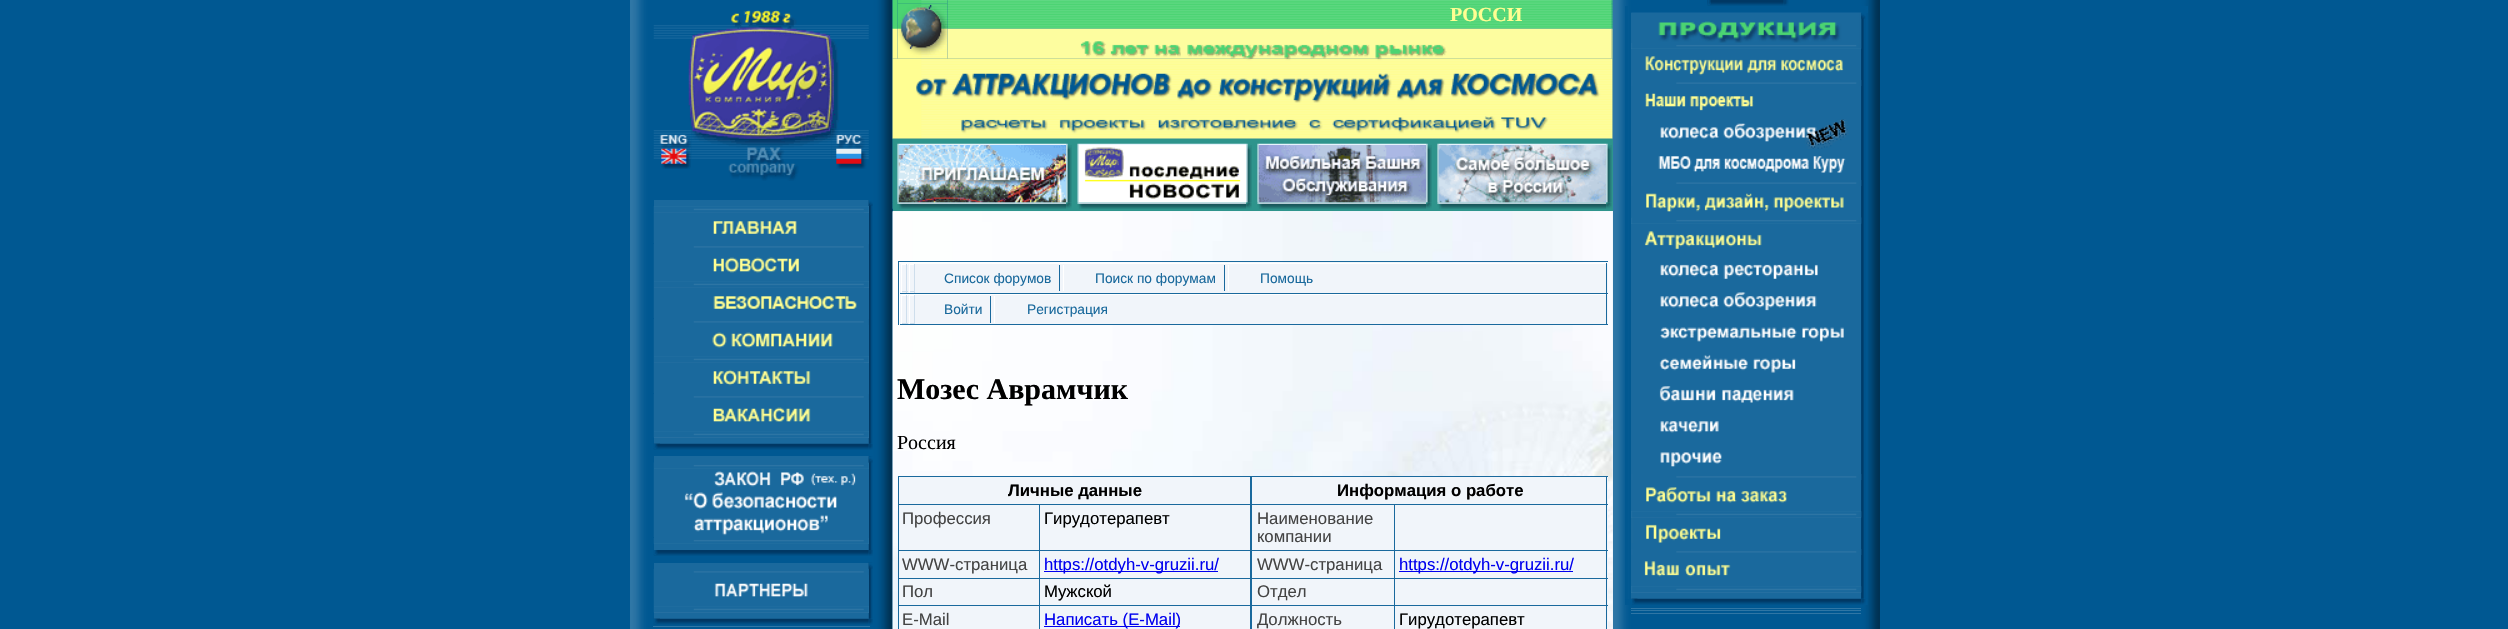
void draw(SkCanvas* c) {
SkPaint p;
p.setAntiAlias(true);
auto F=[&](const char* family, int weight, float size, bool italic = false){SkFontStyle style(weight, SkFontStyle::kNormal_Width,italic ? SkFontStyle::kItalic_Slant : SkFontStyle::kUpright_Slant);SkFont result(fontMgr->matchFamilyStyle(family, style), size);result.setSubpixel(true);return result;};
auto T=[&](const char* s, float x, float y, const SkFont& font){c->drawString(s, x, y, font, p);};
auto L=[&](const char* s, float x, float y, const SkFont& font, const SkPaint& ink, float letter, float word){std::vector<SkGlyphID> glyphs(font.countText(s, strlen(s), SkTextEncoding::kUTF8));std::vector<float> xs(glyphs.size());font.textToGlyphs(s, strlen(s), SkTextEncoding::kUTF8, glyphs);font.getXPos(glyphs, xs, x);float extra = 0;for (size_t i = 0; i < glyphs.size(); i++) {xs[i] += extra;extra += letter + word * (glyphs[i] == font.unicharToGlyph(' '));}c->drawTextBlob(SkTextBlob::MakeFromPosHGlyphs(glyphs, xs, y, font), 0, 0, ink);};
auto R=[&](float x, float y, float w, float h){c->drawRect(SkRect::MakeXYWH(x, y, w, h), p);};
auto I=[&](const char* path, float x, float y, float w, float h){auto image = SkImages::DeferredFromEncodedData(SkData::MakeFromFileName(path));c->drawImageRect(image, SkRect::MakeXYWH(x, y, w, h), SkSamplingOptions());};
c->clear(0xff005892);
I("1.png",630,0,263,629);
I("2.png",653,10,216,119);
I("3.png",653,130,39,39);
I("4.png",691,128,141,53);
I("5.png",831,128,38,41);
p.setColor(0xff1a699d);
R(654,200,215,244);
I("15.png",868,200,5,244);
p.setColor(0xff2f76a5);
R(654,206,215,7);
I("6.png",653,206,216,7);
p.setColor(0xff1a699d);
R(868,213,1,31);
I("7.png",653,212,211,31);
I("8.png",653,244,216,6);
R(868,250,1,31);
p.setColor(0xff2f76a5);
R(654,281,215,7);
I("9.png",653,250,211,32);
I("10.png",653,281,216,7);
p.setColor(0xff1a699d);
R(868,288,1,31);
I("11.png",653,287,211,31);
I("8.png",653,319,216,6);
R(868,325,1,31);
p.setColor(0xff2f76a5);
R(654,356,215,7);
I("12.png",653,325,211,32);
I("10.png",653,356,216,7);
p.setColor(0xff1a699d);
R(868,363,1,31);
I("13.png",653,362,211,31);
I("8.png",653,394,216,6);
R(868,400,1,31);
p.setColor(0xff2f76a5);
R(654,431,215,7);
I("14.png",653,400,211,32);
I("10.png",653,431,216,7);
I("16.png",868,200,5,6);
I("17.png",653,443,216,7);
I("18.png",654,443,6,6);
p.setColor(0xbf005892);
R(653,444,1,4);
I("19.png",869,444,4,6);
p.setColor(0xff1a699d);
R(654,456,215,94);
I("23.png",868,456,5,94);
p.setColor(0xff2f76a5);
R(654,463,215,6);
I("20.png",653,462,216,7);
p.setColor(0xff1a699d);
R(868,469,1,69);
I("21.png",653,469,203,68);
p.setColor(0xff2f76a5);
R(654,538,215,6);
I("22.png",653,538,216,6);
I("24.png",868,456,5,7);
I("25.png",653,550,216,6);
I("26.png",654,550,4,5);
p.setColor(0xbf005892);
R(653,550,1,4);
I("27.png",869,550,4,6);
p.setColor(0xff1a699d);
R(654,563,215,56);
I("29.png",868,562,5,57);
I("8.png",653,569,216,6);
R(868,575,1,31);
p.setColor(0xff2f76a5);
R(654,606,215,7);
I("28.png",653,575,211,32);
I("10.png",653,606,216,7);
p.setColor(0x80005891);
R(869,562,2,1);
I("30.png",868,562,5,7);
I("17.png",653,618,216,7);
I("18.png",654,618,6,6);
p.setColor(0xbf005892);
R(653,619,1,4);
I("19.png",869,619,4,6);
p.setColor(0xff2f76a5);
R(653,626,217,1);
I("33.png",892,0,6,59);
I("36.png",947,0,665,29);
I("34.png",897,0,51,4);
I("31.png",897,3,51,52);
I("42.png",1612,0,268,629);
I("35.png",1611,0,2,4);
I("32.png",1611,3,2,26);
auto f1 = F("Liberation Serif",700,20);
p.setColor(0xfffffe92);
L("РОССИ",1450,21,f1,p,0,12);
I("37.png",947,28,665,31);
I("38.png",1611,28,2,27);
I("39.png",897,55,51,4);
I("40.png",1611,55,2,4);
I("41.png",892,58,721,81);
I("43.png",1707,0,77,6);
I("44.png",1707,0,4,5);
I("45.png",1784,0,5,6);
p.setColor(0xff015992);
R(1625,6,3,593);
p.setColor(0xff1a699d);
R(1631,13,230,586);
p.setColor(0xff2f76a5);
R(1631,43,230,6);
I("67.png",1861,13,7,586);
I("47.png",1631,42,231,7);
p.setColor(0xff005892);
R(1861,6,7,7);
I("46.png",1631,12,231,31);
I("48.png",1645,56,199,20);
I("49.png",1631,80,231,6);
I("50.png",1645,93,109,18);
I("51.png",1660,119,189,30);
I("52.png",1658,156,188,17);
I("49.png",1631,180,231,6);
I("53.png",1646,193,198,19);
p.setColor(0xff2f76a5);
R(1631,218,230,6);
I("47.png",1631,217,231,7);
I("54.png",1644,231,118,18);
I("55.png",1660,264,158,15);
I("56.png",1660,292,157,19);
I("57.png",1660,327,184,15);
I("58.png",1659,354,137,19);
I("59.png",1659,386,135,17);
I("60.png",1660,421,59,12);
I("61.png",1660,452,62,15);
I("62.png",1631,474,231,6);
R(1631,511,230,7);
I("63.png",1631,487,225,25);
I("64.png",1631,511,231,7);
I("65.png",1631,517,225,26);
I("62.png",1631,549,231,6);
R(1631,586,230,7);
I("66.png",1631,561,225,26);
I("64.png",1631,586,231,7);
I("68.png",1861,13,5,6);
I("69.png",1631,598,231,7);
p.setColor(0xff005892);
R(1625,599,7,6);
I("70.png",1632,598,6,6);
I("71.png",1861,599,7,6);
p.setColor(0xff2f76a5);
R(1631,608,230,1);
R(1631,610,230,1);
R(1631,613,230,1);
p.setColor(0xff2e948c);
R(893,139,720,72);
I("72.png",892,138,7,7);
I("73.png",898,138,169,7);
I("74.png",1066,138,7,7);
I("75.png",892,145,7,58);
I("76.png",898,145,169,58);
I("77.png",1066,145,6,58);
I("78.png",892,202,7,7);
I("79.png",898,202,169,7);
I("80.png",1066,202,6,7);
I("81.png",1072,138,7,7);
I("82.png",1078,138,169,7);
I("74.png",1246,138,7,7);
I("83.png",1077,145,2,58);
I("84.png",1078,145,169,58);
I("85.png",1246,145,6,58);
I("86.png",1077,202,2,5);
I("87.png",1078,202,169,7);
I("88.png",1246,202,6,7);
I("89.png",1252,138,7,7);
I("82.png",1258,138,169,7);
I("74.png",1426,138,7,7);
I("90.png",1257,145,2,58);
I("91.png",1258,145,169,58);
I("92.png",1426,145,6,58);
I("93.png",1257,202,2,5);
I("94.png",1258,202,169,7);
I("95.png",1426,202,6,7);
I("89.png",1432,138,7,7);
I("82.png",1438,138,169,7);
I("96.png",1606,138,7,7);
I("90.png",1437,145,2,58);
I("97.png",1438,145,169,58);
I("98.png",1606,145,6,58);
I("99.png",1437,202,2,5);
I("100.png",1438,202,169,7);
I("101.png",1606,202,6,7);
p.setColor(0xffedf1f5);
R(893,211,720,418);
I("102.png",892,211,721,418);
p.setColor(0xff1a699d);
R(898,261,710,1);
R(898,261,1,64);
p.setColor(0xfff1f5fa);
R(900,264,708,29);
p.setColor(0xffffffff);
R(992,263,616,1);
p.setColor(0xff1a699d);
R(1606,263,1,31);
R(899,293,709,1);
p.setColor(0xffffffff);
R(899,293,1,1);
R(901,264,7,1);
p.setColor(0xffcedeec);
R(906,264,1,29);
R(901,291,7,1);
p.setColor(0xffffffff);
R(901,264,1,29);
R(909,264,6,1);
p.setColor(0xffcedeec);
R(914,264,1,29);
R(909,291,6,1);
p.setColor(0xffffffff);
R(909,264,1,29);
auto f2 = F("Liberation Sans",400,13.75);
p.setColor(0xff19699c);
T("Список форумов",944,283,f2);
p.setColor(0xffffffff);
R(1063,265,1,26);
p.setColor(0xff1a699d);
R(1059,265,1,26);
p.setColor(0xff19699c);
T("Поиск по форумам",1095,283,f2);
p.setColor(0xffffffff);
R(1228,265,1,26);
p.setColor(0xff1a699d);
R(1224,265,1,26);
p.setColor(0xff19699c);
T("Помощь",1260,283,f2);
p.setColor(0xfff1f5fa);
R(900,295,708,29);
p.setColor(0xffffffff);
R(992,294,616,1);
p.setColor(0xff1a699d);
R(1606,294,1,31);
R(899,324,709,1);
p.setColor(0xffffffff);
R(899,324,1,1);
R(901,295,7,1);
p.setColor(0xffcedeec);
R(906,295,1,29);
R(901,323,7,1);
p.setColor(0xffffffff);
R(901,295,1,29);
R(909,295,6,1);
p.setColor(0xffcedeec);
R(914,295,1,29);
R(909,323,6,1);
p.setColor(0xffffffff);
R(909,295,1,29);
p.setColor(0xff19699c);
T("Войти",944,314,f2);
p.setColor(0xffffffff);
R(994,296,1,27);
p.setColor(0xff1a699d);
R(990,296,1,27);
p.setColor(0xff19699c);
T("Регистрация",1027,314,f2);
auto f3 = F("Liberation Serif",700,30);
p.setColor(0xff000000);
T("Мозес Аврамчик",897,399,f3);
auto f4 = F("Liberation Serif",400,20);
T("Россия",897,449,f4);
p.setColor(0xfff1f5fa);
R(899,477,709,27);
p.setColor(0xff1a699d);
R(898,476,710,1);
R(1250,476,2,28);
R(898,476,1,28);
auto f5 = F("Liberation Sans",700,16.75);
p.setColor(0xff000000);
T("Личные данные",1008,496,f5);
p.setColor(0xff1a699d);
R(1606,476,1,28);
p.setColor(0xff000000);
T("Информация о работе",1337,496,f5);
p.setColor(0xfff1f5fa);
R(899,505,709,45);
p.setColor(0xff1a699d);
R(898,504,710,1);
R(898,504,1,46);
auto f6 = F("Liberation Sans",400,16.75);
p.setColor(0xff444444);
T("Профессия",902,524,f6);
p.setColor(0xff1a699d);
R(1250,504,2,46);
R(1039,504,1,46);
p.setColor(0xff000000);
T("Гирудотерапевт",1044,524,f6);
p.setColor(0xff444444);
T("Наименование",1257,524,f6);
T("компании",1257,542,f6);
p.setColor(0xff1a699d);
R(1606,504,1,46);
R(1394,504,1,46);
p.setColor(0xfff1f5fa);
R(899,551,709,27);
p.setColor(0xff1a699d);
R(898,550,710,1);
R(898,550,1,28);
p.setColor(0xff444444);
T("WWW-страница",902,570,f6);
p.setColor(0xff1a699d);
R(1250,550,2,28);
R(1039,550,1,28);
p.setColor(0xff0000ee);
R(1044,571,174,1);
T("https://otdyh-v-gruzii.ru/",1044,570,f6);
p.setColor(0xff444444);
T("WWW-страница",1257,570,f6);
p.setColor(0xff1a699d);
R(1606,550,1,28);
R(1394,550,1,28);
p.setColor(0xff0000ee);
R(1399,571,174,1);
T("https://otdyh-v-gruzii.ru/",1399,570,f6);
p.setColor(0xfff1f5fa);
R(899,579,709,26);
p.setColor(0xff1a699d);
R(898,578,710,1);
R(898,578,1,27);
p.setColor(0xff444444);
T("Пол",902,597,f6);
p.setColor(0xff1a699d);
R(1250,578,2,27);
R(1039,578,1,27);
p.setColor(0xff000000);
T("Мужской",1044,597,f6);
p.setColor(0xff444444);
T("Отдел",1257,597,f6);
p.setColor(0xff1a699d);
R(1606,578,1,27);
R(1394,578,1,27);
p.setColor(0xfff1f5fa);
R(899,606,709,23);
p.setColor(0xff1a699d);
R(898,605,710,1);
R(898,605,1,24);
p.setColor(0xff444444);
T("E-Mail",902,625,f6);
p.setColor(0xff1a699d);
R(1250,605,2,24);
R(1039,605,1,24);
p.setColor(0xff0000ee);
R(1044,626,136,1);
T("Написать (E-Mail)",1044,625,f6);
p.setColor(0xff444444);
T("Должность",1257,625,f6);
p.setColor(0xff1a699d);
R(1606,605,1,24);
R(1394,605,1,24);
p.setColor(0xff000000);
T("Гирудотерапевт",1399,625,f6);
}
